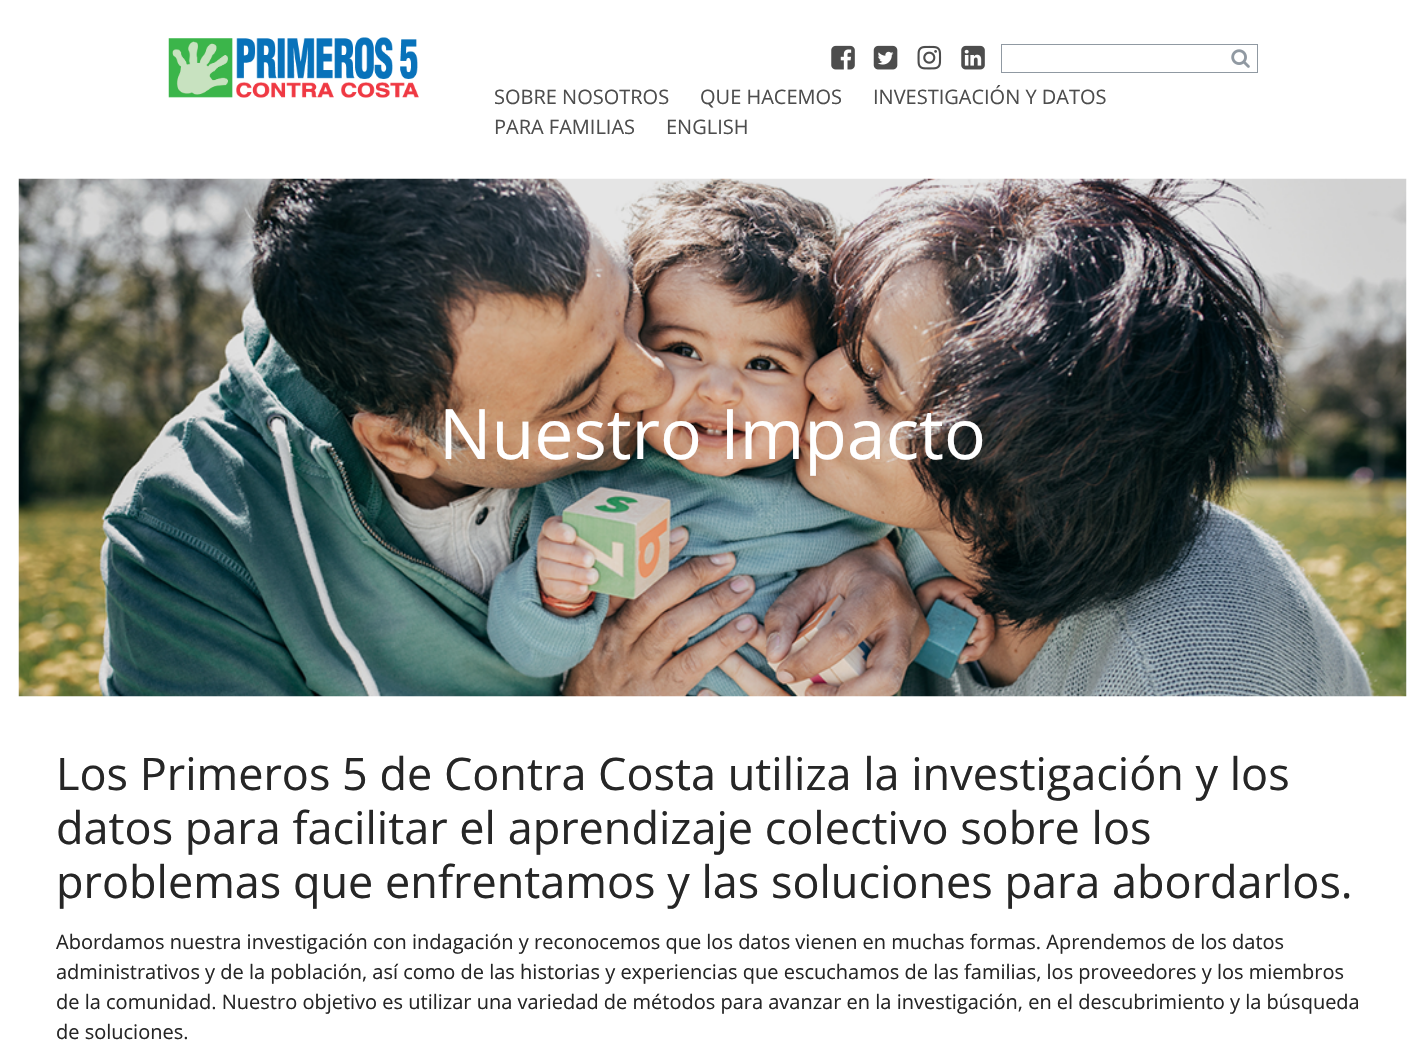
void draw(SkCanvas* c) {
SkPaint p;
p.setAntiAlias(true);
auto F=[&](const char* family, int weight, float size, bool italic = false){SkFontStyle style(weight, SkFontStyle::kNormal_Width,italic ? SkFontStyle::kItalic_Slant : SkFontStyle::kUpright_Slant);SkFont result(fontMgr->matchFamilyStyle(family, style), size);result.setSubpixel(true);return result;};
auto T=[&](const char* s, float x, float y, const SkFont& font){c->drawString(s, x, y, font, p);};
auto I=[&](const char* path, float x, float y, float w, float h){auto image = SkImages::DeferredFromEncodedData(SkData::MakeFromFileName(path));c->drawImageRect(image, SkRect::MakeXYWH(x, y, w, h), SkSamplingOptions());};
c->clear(0xffffffff);
I("1.png",168,37,251,61);
I("2.png",831,45,24,25);
I("3.png",873,45,25,25);
I("4.png",917,45,25,25);
I("5.png",961,45,24,25);
p.setStroke(true);
p.setStrokeWidth(1);
p.setColor(0xff9099a2);
c->drawRect(SkRect::MakeXYWH(1001.5,44.5,256,28),p);
I("6.png",1231,49,19,19);
auto f1 = F("Open Sans",400,20);
p.setStroke(false);
p.setColor(0xff4d4d4d);
T("SOBRE NOSOTROS",494,104,f1);
T("QUE HACEMOS",700,104,f1);
T("INVESTIGACIÓN Y DATOS",873,104,f1);
T("PARA FAMILIAS",494,134,f1);
T("ENGLISH",666,134,f1);
I("7.png",18,178,1389,519);
auto f2 = F("Open Sans",400,69.75);
p.setColor(0xffffffff);
T("Nuestro Impacto",439,459,f2);
auto f3 = F("Open Sans",400,45);
p.setColor(0xff262626);
T("Los Primeros 5 de Contra Costa utiliza la investigación y los",56,790,f3);
T("datos para facilitar el aprendizaje colectivo sobre los",56,844,f3);
T("problemas que enfrentamos y las soluciones para abordarlos.",56,898,f3);
T("Abordamos nuestra investigación con indagación y reconocemos que los datos vienen en muchas formas. Aprendemos de los datos",56,949,f1);
T("administrativos y de la población, así como de las historias y experiencias que escuchamos de las familias, los proveedores y los miembros",56,979,f1);
T("de la comunidad. Nuestro objetivo es utilizar una variedad de métodos para avanzar en la investigación, en el descubrimiento y la búsqueda",56,1009,f1);
T("de soluciones.",56,1039,f1);
}
